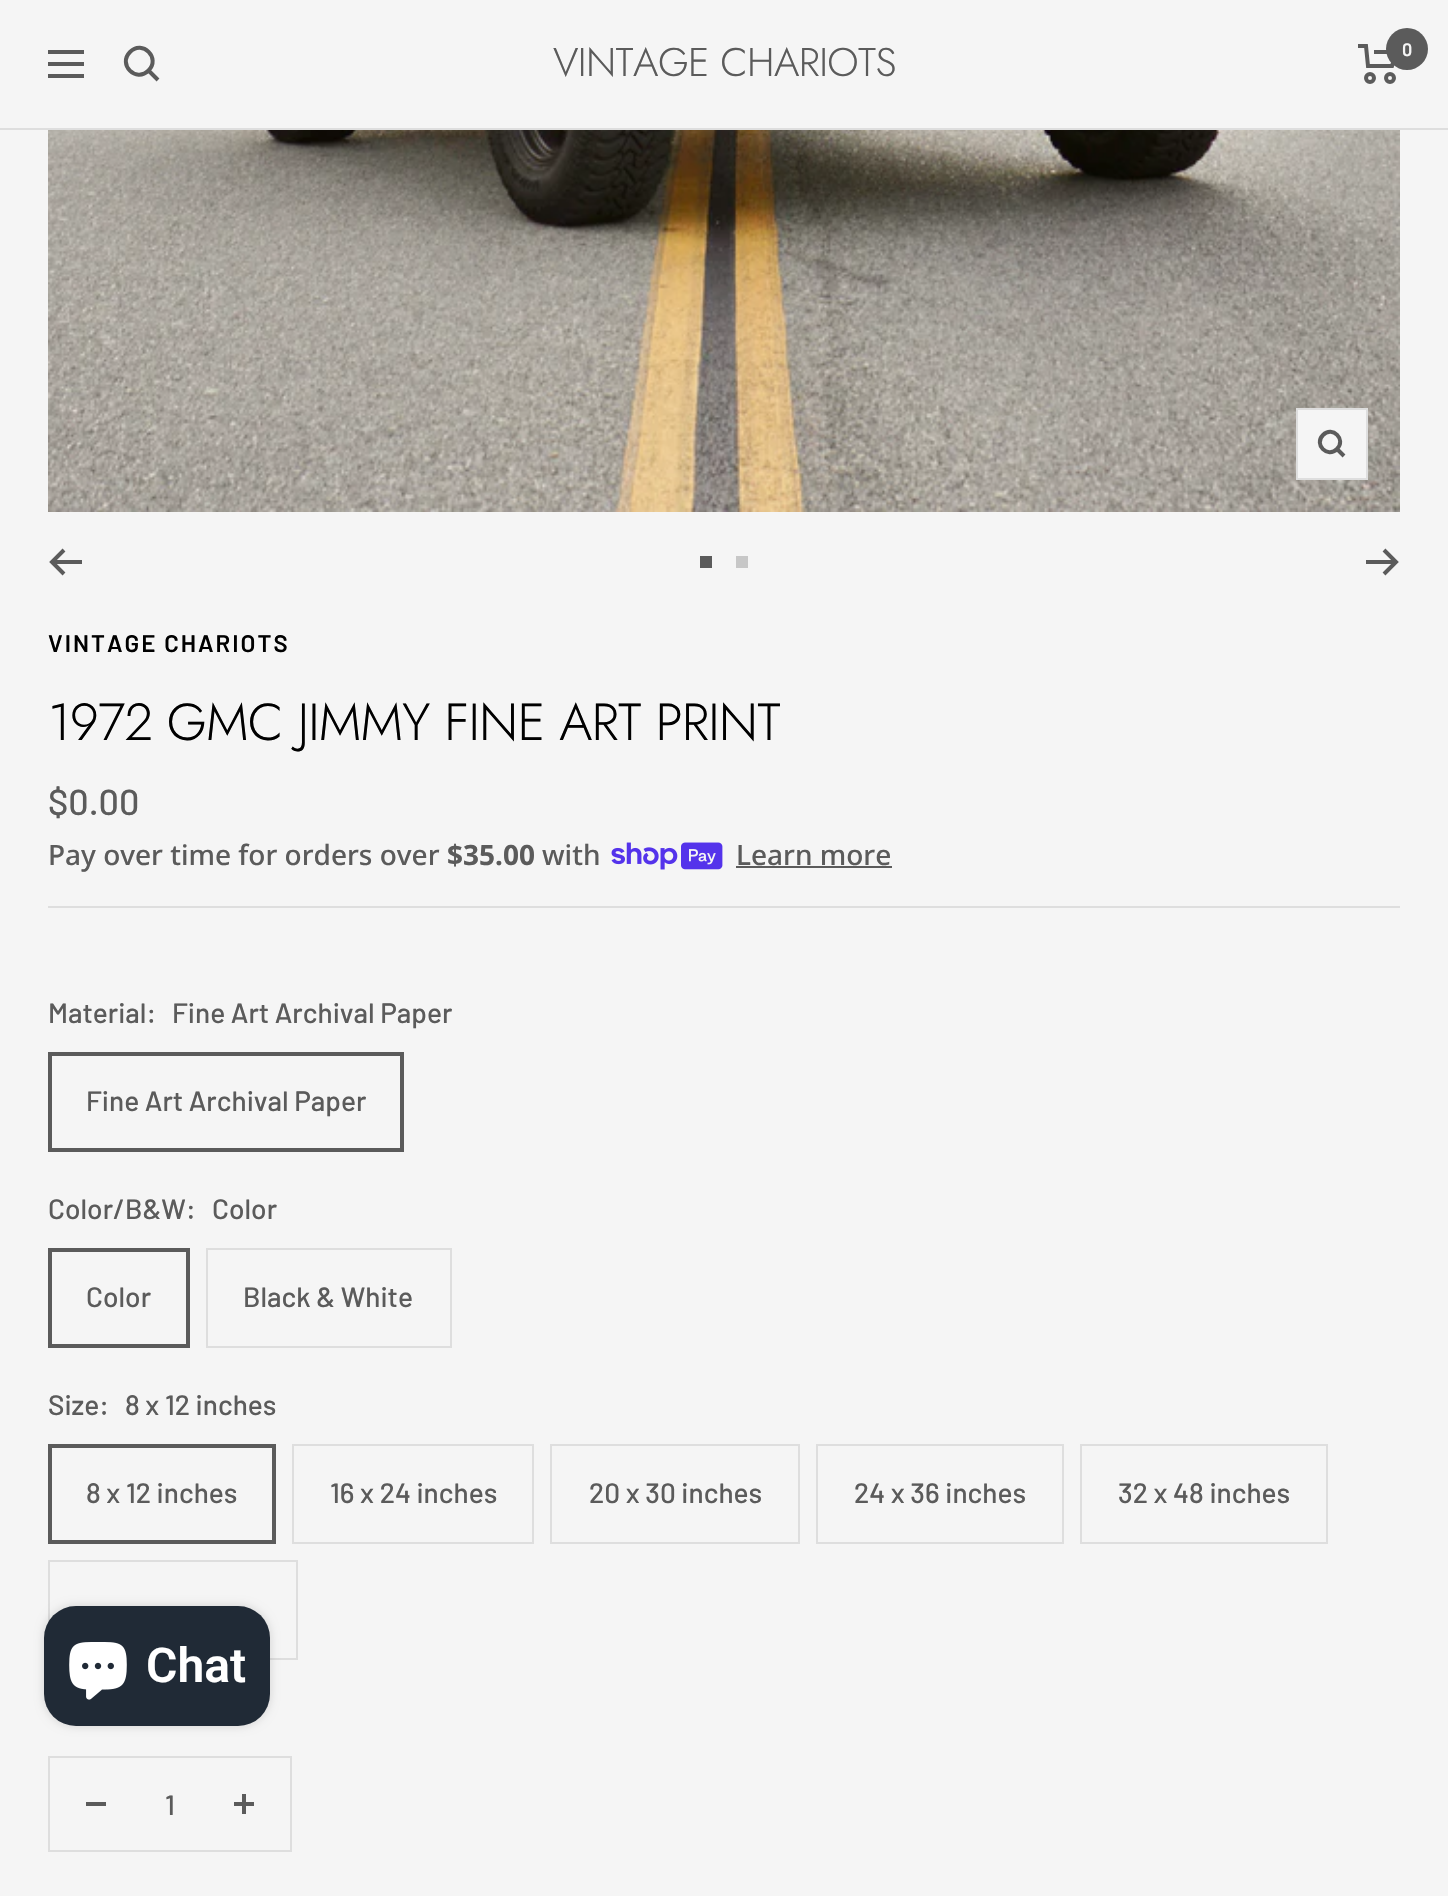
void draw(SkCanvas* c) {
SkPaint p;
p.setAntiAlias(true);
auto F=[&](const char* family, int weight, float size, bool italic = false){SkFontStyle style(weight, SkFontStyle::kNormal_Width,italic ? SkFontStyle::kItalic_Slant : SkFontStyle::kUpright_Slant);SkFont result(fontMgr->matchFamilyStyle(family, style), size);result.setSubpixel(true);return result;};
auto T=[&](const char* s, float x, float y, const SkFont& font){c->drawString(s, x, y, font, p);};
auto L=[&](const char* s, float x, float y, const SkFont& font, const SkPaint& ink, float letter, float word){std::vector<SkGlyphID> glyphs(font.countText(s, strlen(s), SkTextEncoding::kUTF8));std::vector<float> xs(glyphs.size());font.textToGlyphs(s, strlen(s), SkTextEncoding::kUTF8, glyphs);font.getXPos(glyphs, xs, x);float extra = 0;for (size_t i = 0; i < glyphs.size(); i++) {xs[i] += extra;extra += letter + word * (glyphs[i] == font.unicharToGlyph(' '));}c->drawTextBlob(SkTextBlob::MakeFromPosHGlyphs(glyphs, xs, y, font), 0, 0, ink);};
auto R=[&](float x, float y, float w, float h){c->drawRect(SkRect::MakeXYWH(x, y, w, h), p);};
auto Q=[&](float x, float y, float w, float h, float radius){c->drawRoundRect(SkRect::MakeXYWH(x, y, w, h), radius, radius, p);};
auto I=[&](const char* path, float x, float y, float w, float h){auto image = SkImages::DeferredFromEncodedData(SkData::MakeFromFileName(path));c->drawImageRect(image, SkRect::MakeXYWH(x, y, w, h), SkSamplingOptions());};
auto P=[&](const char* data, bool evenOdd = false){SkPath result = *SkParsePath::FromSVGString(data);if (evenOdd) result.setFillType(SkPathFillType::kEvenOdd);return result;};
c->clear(0xfff5f5f5);
p.setColor(0xffdedede);
R(0,128,1448,2);
p.setStroke(true);
p.setStrokeWidth(4);
p.setColor(0xff5b5b5b);
c->drawPath(P("M48 52h36m-36 24h36zm0-12h36z"),p);
c->drawPath(P("M148.5 70.5c12.5-12.5-6-31-18.5-18.5c-12.5 12.5 6 31 18.5 18.5zm0 0l9.5 9.5"),p);
auto f1 = F("Jost",300,40);
p.setStroke(false);
L("VINTAGE CHARIOTS",553,76,f1,p,-.6,0);
p.setStroke(true);
c->drawPath(P("M1358 46h8l2 20h24l4-14h-22"),p);
c->drawCircle(1370,78,4,p);
c->drawCircle(1390,78,4,p);
p.setStroke(false);
c->drawCircle(1407,49,21,p);
auto f2 = F("Barlow",600,18);
p.setColor(0xfff5f5f5);
T("0",1402,56,f2);
I("1.png",48,130,1352,382);
c->drawRect(SkRect::MakeXYWH(1297,409,70,70),p);
p.setStroke(true);
p.setStrokeWidth(2);
p.setColor(0xffdedede);
c->drawRect(SkRect::MakeXYWH(1297,409,70,70),p);
p.setStrokeWidth(4);
p.setColor(0xff5b5b5b);
c->drawPath(P("M1337 449c9.5-9.5-4.5-23.5-14-14c-9.5 9.5 4.5 23.5 14 14zm0 0l7 7"),p);
c->drawPath(P("M82 562h-30m12-12l-12 12l12 12"),p);
p.setStroke(false);
R(700,556,12,12);
p.setColor(0xffc7c7c7);
R(736,556,12,12);
p.setStroke(true);
p.setColor(0xff5b5b5b);
c->drawPath(P("M1366 562h30m-12-12l12 12l-12 12"),p);
p.setStroke(false);
p.setColor(0xffdedede);
R(48,906,1352,2);
auto f3 = F("Barlow",600,24);
p.setColor(0xff000000);
L("VINTAGE CHARIOTS",48,652,f3,p,2,0);
auto f4 = F("Jost",300,52);
L("1972 GMC JIMMY FINE ART PRINT",48,740,f4,p,-.8,0);
auto f5 = F("Barlow",500,36);
p.setColor(0xff5b5b5b);
T("$0.00",48,815,f5);
auto f6 = F("Noto Sans",500,28);
T("Pay over time for orders over",48,865,f6);
auto f7 = F("Noto Sans",700,28);
T("$35.00",447,865,f7);
T("with",542,865,f6);
I("2.png",611,842,112,28);
T("Learn more",736,865,f6);
R(736,866,156,2);
auto f8 = F("Barlow",500,28);
T("Material:",48,1023,f8);
T("Fine Art Archival Paper",172,1023,f8);
p.setStroke(true);
p.setStrokeWidth(2);
c->drawRect(SkRect::MakeXYWH(49,1053,354,98),p);
c->drawRect(SkRect::MakeXYWH(51,1055,350,94),p);
p.setStroke(false);
T("Fine Art Archival Paper",86,1111,f8);
T("Color/B&W:",48,1219,f8);
T("Color",212,1219,f8);
p.setStroke(true);
c->drawRect(SkRect::MakeXYWH(49,1249,140,98),p);
c->drawRect(SkRect::MakeXYWH(51,1251,136,94),p);
p.setStroke(false);
T("Color",86,1307,f8);
p.setStroke(true);
p.setColor(0xffdedede);
c->drawRect(SkRect::MakeXYWH(207,1249,244,98),p);
p.setStroke(false);
p.setColor(0xff5b5b5b);
T("Black & White",243,1307,f8);
T("Size:",48,1415,f8);
T("8 x 12 inches",125,1415,f8);
p.setStroke(true);
c->drawRect(SkRect::MakeXYWH(49,1445,226,98),p);
c->drawRect(SkRect::MakeXYWH(51,1447,222,94),p);
p.setStroke(false);
T("8 x 12 inches",86,1503,f8);
p.setStroke(true);
p.setColor(0xffdedede);
c->drawRect(SkRect::MakeXYWH(293,1445,240,98),p);
p.setStroke(false);
p.setColor(0xff5b5b5b);
T("16 x 24 inches",330,1503,f8);
p.setStroke(true);
p.setColor(0xffdedede);
c->drawRect(SkRect::MakeXYWH(551,1445,248,98),p);
p.setStroke(false);
p.setColor(0xff5b5b5b);
T("20 x 30 inches",589,1503,f8);
p.setStroke(true);
p.setColor(0xffdedede);
c->drawRect(SkRect::MakeXYWH(817,1445,246,98),p);
p.setStroke(false);
p.setColor(0xff5b5b5b);
T("24 x 36 inches",854,1503,f8);
p.setStroke(true);
p.setColor(0xffdedede);
c->drawRect(SkRect::MakeXYWH(1081,1445,246,98),p);
p.setStroke(false);
p.setColor(0xff5b5b5b);
T("32 x 48 inches",1118,1503,f8);
p.setStroke(true);
p.setColor(0xffdedede);
c->drawRect(SkRect::MakeXYWH(49,1561,248,98),p);
c->drawRect(SkRect::MakeXYWH(49,1757,242,94),p);
p.setStroke(false);
p.setColor(0xff5b5b5b);
R(86,1802,20,4);
T("1",165,1815,f8);
I("3.png",234,1794,20,20);
p.setColor(0x26000000);
p.setMaskFilter(SkMaskFilter::MakeBlur(kNormal_SkBlurStyle, 5));
c->drawRoundRect(SkRect::MakeXYWH(44,1606,226,120),32,32,p);
p.setMaskFilter(nullptr);
p.setColor(0xff202a36);
Q(44,1606,226,120,32);
I("4.png",69,1642,58,58);
auto f9 = F("Roboto",600,48);
p.setColor(0xffffffff);
T("Chat",146,1682,f9);
}
